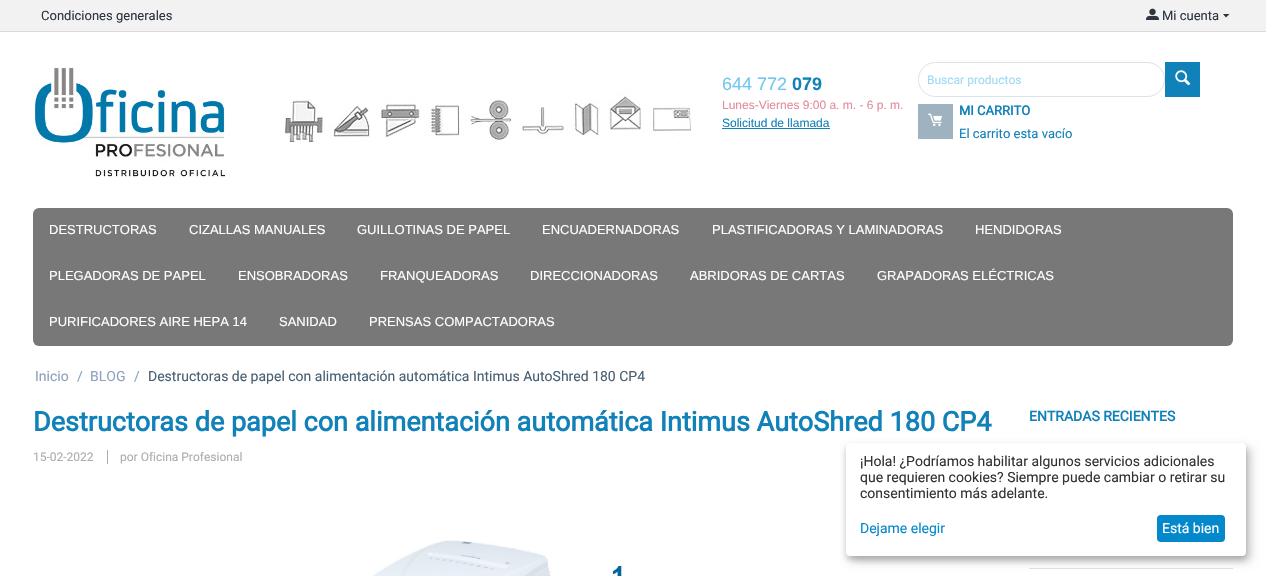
void draw(SkCanvas* c) {
SkPaint p;
p.setAntiAlias(true);
auto F=[&](const char* family, int weight, float size, bool italic = false){SkFontStyle style(weight, SkFontStyle::kNormal_Width,italic ? SkFontStyle::kItalic_Slant : SkFontStyle::kUpright_Slant);SkFont result(fontMgr->matchFamilyStyle(family, style), size);result.setSubpixel(true);return result;};
auto T=[&](const char* s, float x, float y, const SkFont& font){c->drawString(s, x, y, font, p);};
auto R=[&](float x, float y, float w, float h){c->drawRect(SkRect::MakeXYWH(x, y, w, h), p);};
auto Q=[&](float x, float y, float w, float h, float radius){c->drawRoundRect(SkRect::MakeXYWH(x, y, w, h), radius, radius, p);};
auto I=[&](const char* path, float x, float y, float w, float h){auto image = SkImages::DeferredFromEncodedData(SkData::MakeFromFileName(path));c->drawImageRect(image, SkRect::MakeXYWH(x, y, w, h), SkSamplingOptions());};
auto P=[&](const char* data, bool evenOdd = false){SkPath result = *SkParsePath::FromSVGString(data);if (evenOdd) result.setFillType(SkPathFillType::kEvenOdd);return result;};
c->clear(0xffffffff);
p.setColor(0xfff2f2f2);
R(0,0,1266,31);
p.setColor(0xffdadada);
R(0,31,1266,1);
auto f1 = F("Roboto",400,13);
p.setColor(0xff2d3540);
T("Condiciones generales",41,20,f1);
I("1.png",1146,8,13,12);
T("Mi cuenta",1162,20,f1);
c->drawPath(P("M1226 17.5l-3-3.5h6.5z"),p);
I("2.png",33,66,659,112);
auto f2 = F("Liberation Sans",400,18);
p.setColor(0xff71c7f2);
T("644 772",722,90,f2);
auto f3 = F("Liberation Sans",700,18);
p.setColor(0xff1181b9);
T("079",792,90,f3);
auto f4 = F("Liberation Sans",400,12);
p.setColor(0xffe48a9a);
T("Lunes-Viernes 9:00 a. m. - 6 p. m.",722,109,f4);
p.setColor(0xff1181b9);
T("Solicitud de llamada",722,127,f4);
R(722,128,108,1);
p.setStroke(true);
p.setStrokeWidth(1);
p.setColor(0xffdce3ea);
c->drawRoundRect(SkRect::MakeXYWH(918.5,62.5,246,34),17,17,p);
auto f5 = F("Roboto",400,12);
p.setStroke(false);
p.setColor(0xffa0d9f6);
T("Buscar productos",927,84,f5);
p.setColor(0xff1181b9);
R(1165,62,35,35);
I("3.png",1175,70,16,16);
p.setColor(0xff9fb2c0);
R(918,104,35,35);
I("4.png",928,113,14,14);
auto f6 = F("Roboto",700,13);
p.setColor(0xff1181b9);
T("MI CARRITO",959,115,f6);
T("El carrito esta vacío",959,138,f1);
p.setColor(0xff787878);
Q(33,208,1200,138,6);
auto f7 = F("Liberation Sans",400,13);
p.setColor(0xffffffff);
T("DESTRUCTORAS",49,234,f7);
T("CIZALLAS MANUALES",189,234,f7);
T("GUILLOTINAS DE PAPEL",357,234,f7);
T("ENCUADERNADORAS",542,234,f7);
T("PLASTIFICADORAS Y LAMINADORAS",712,234,f7);
T("HENDIDORAS",975,234,f7);
T("PLEGADORAS DE PAPEL",49,280,f7);
T("ENSOBRADORAS",238,280,f7);
T("FRANQUEADORAS",380,280,f7);
T("DIRECCIONADORAS",530,280,f7);
T("ABRIDORAS DE CARTAS",690,280,f7);
T("GRAPADORAS ELÉCTRICAS",877,280,f7);
T("PURIFICADORES AIRE HEPA 14",49,326,f7);
T("SANIDAD",279,326,f7);
T("PRENSAS COMPACTADORAS",369,326,f7);
auto f8 = F("Roboto",400,14);
p.setColor(0xff8ca3ba);
T("Inicio",35,381,f8);
T("/",77,381,f8);
T("BLOG",90,381,f8);
T("/",134,381,f8);
p.setColor(0xff465f73);
T("Destructoras de papel con alimentación automática Intimus AutoShred 180 CP4",148,381,f8);
auto f9 = F("Roboto",700,27);
p.setColor(0xff1181b9);
T("Destructoras de papel con alimentación automática Intimus AutoShred 180 CP4",33,431,f9);
p.setColor(0xffadadad);
T("15-02-2022",33,461,f5);
R(107,450,1,14);
T("por Oficina Profesional",120,461,f5);
I("5.png",373,540,252,36);
auto f10 = F("Roboto",700,14);
p.setColor(0xff1181b9);
T("ENTRADAS RECIENTES",1029,421,f10);
p.setColor(0xffdce3ea);
R(1029,568,204,1);
p.setColor(0x30000000);
p.setMaskFilter(SkMaskFilter::MakeBlur(kNormal_SkBlurStyle, 5));
c->drawRoundRect(SkRect::MakeXYWH(851,448,400,113),4,4,p);
p.setMaskFilter(nullptr);
p.setColor(0x33000000);
p.setMaskFilter(SkMaskFilter::MakeBlur(kNormal_SkBlurStyle, 3));
c->drawRoundRect(SkRect::MakeXYWH(846,447,400,113),4,4,p);
p.setMaskFilter(nullptr);
p.setColor(0xffffffff);
Q(846,443,400,113,4);
p.setColor(0xff333333);
T("¡Hola! ¿Podríamos habilitar algunos servicios adicionales",860,466,f8);
T("que requieren cookies? Siempre puede cambiar o retirar su",860,482,f8);
T("consentimiento más adelante.",860,498,f8);
p.setColor(0xff0388cc);
T("Dejame elegir",860,533,f8);
Q(1157,515,68,27,4);
p.setColor(0xffffffff);
T("Está bien",1162,533,f8);
}
